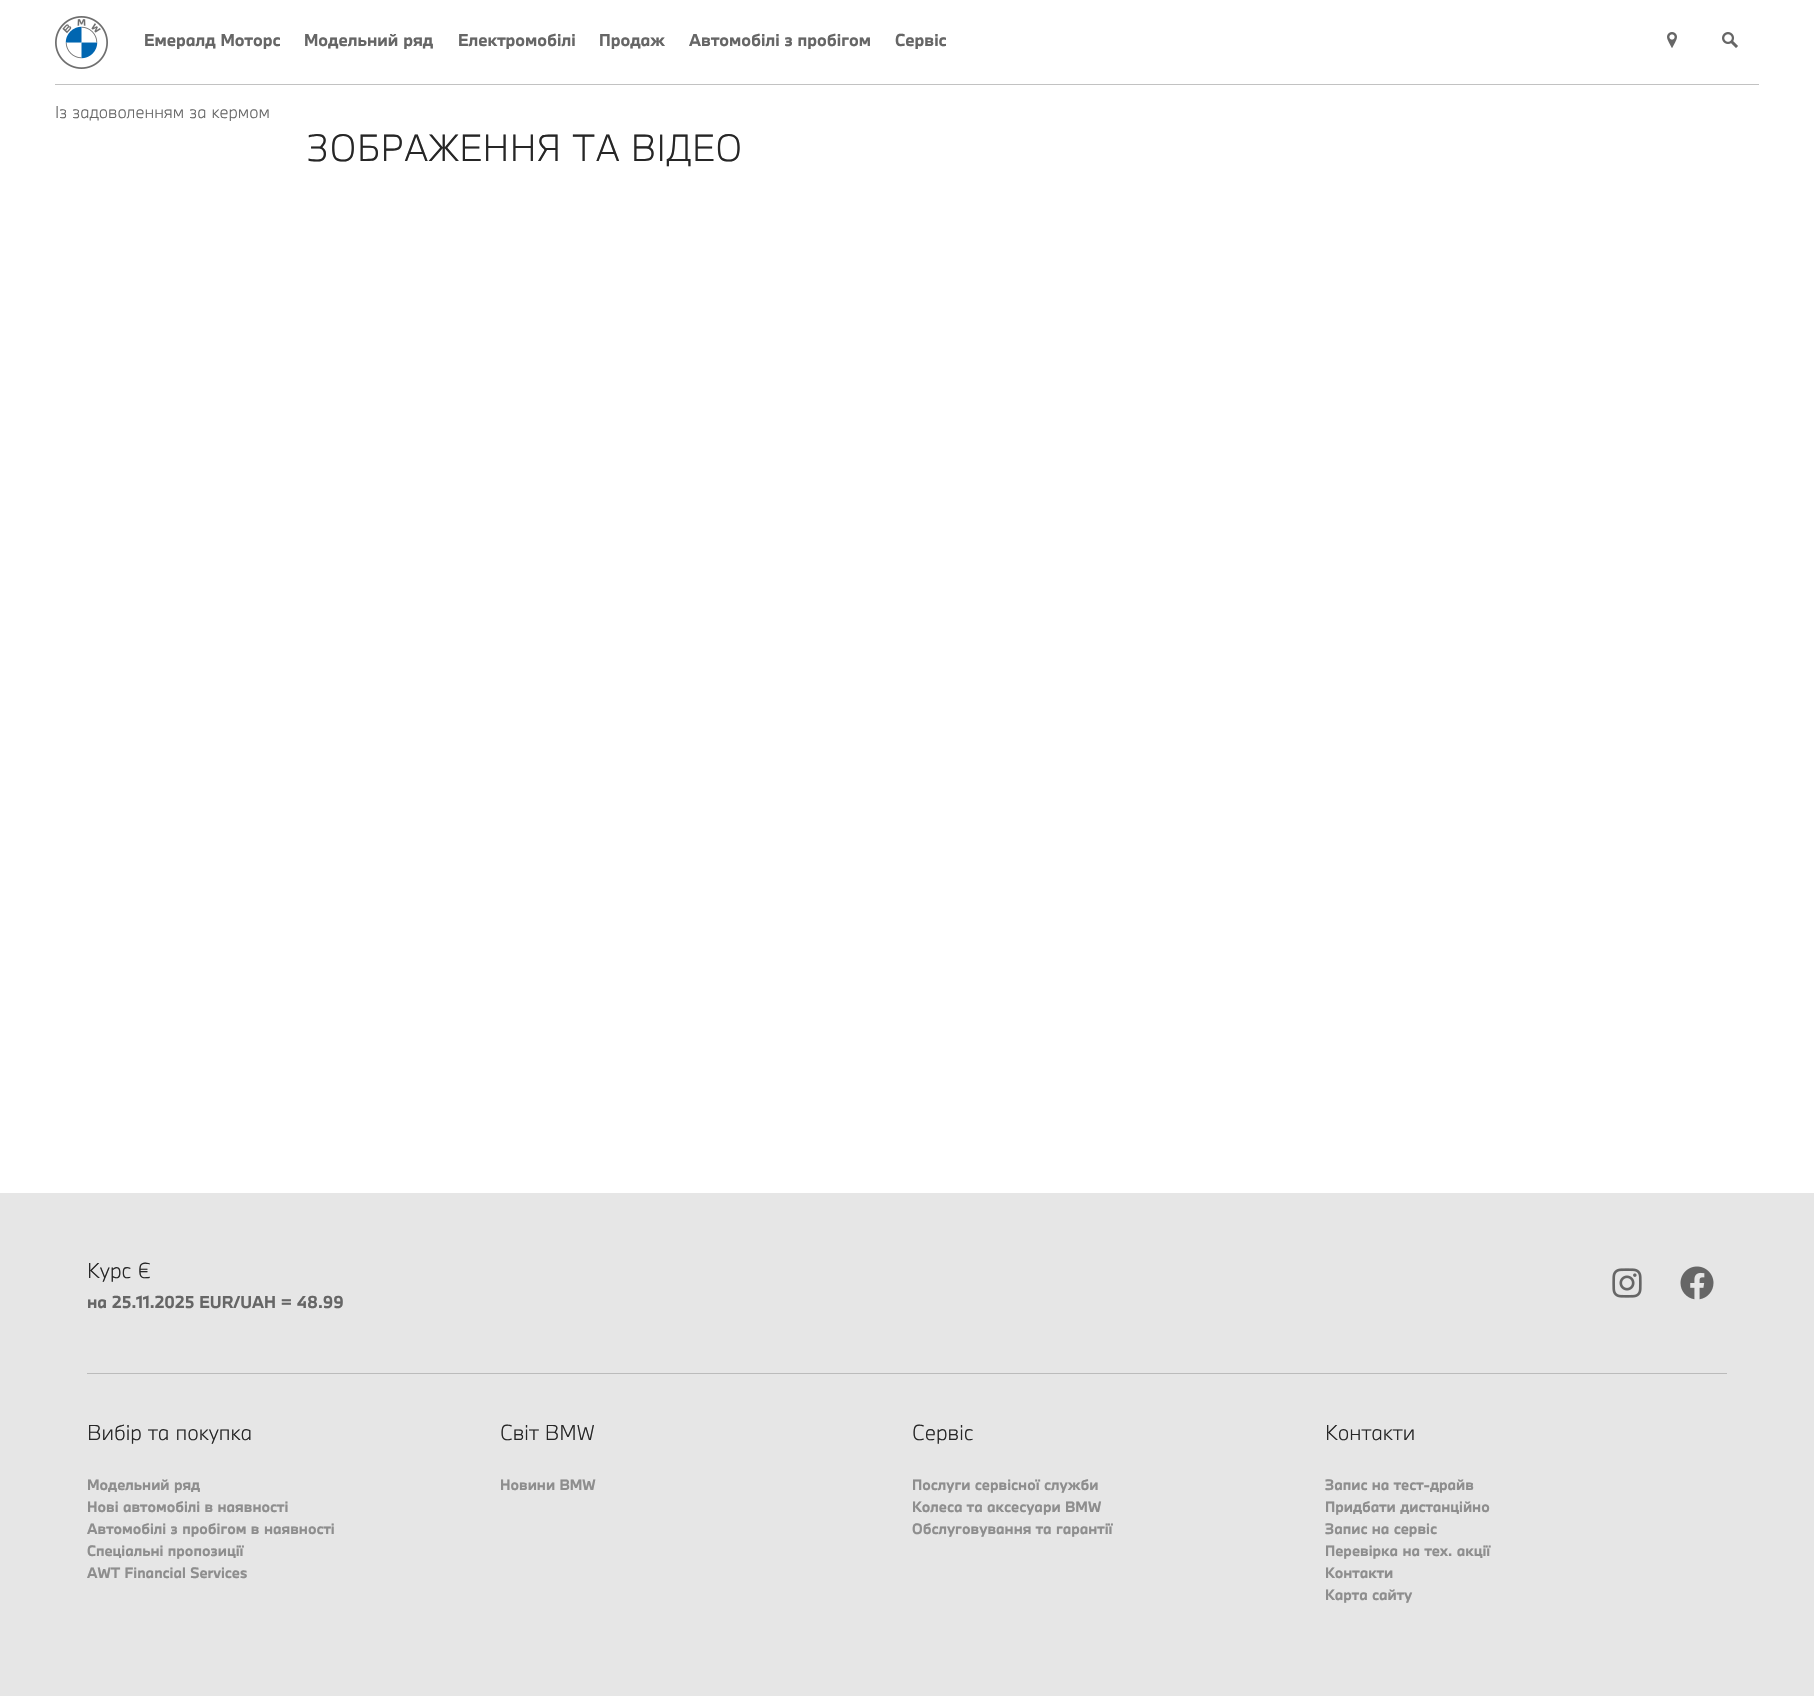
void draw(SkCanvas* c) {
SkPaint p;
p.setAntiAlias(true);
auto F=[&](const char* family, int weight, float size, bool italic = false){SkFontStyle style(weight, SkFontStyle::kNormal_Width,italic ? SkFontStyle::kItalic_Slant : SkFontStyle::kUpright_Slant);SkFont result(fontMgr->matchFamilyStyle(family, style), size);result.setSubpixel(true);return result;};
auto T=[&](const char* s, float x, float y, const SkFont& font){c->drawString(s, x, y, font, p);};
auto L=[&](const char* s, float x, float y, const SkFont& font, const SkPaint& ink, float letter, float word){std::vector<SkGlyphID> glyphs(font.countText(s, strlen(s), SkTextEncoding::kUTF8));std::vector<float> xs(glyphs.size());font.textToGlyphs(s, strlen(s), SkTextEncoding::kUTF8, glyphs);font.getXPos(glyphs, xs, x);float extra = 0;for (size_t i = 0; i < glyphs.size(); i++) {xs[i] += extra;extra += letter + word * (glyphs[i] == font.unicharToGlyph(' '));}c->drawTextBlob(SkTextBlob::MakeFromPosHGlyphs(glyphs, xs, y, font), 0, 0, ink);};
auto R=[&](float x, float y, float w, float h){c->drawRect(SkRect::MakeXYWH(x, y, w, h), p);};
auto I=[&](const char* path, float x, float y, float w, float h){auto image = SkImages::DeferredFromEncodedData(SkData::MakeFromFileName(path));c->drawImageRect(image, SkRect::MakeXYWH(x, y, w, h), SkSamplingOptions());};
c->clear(0xffffffff);
p.setColor(0xffc2c2c2);
R(55,84,1704,1);
auto f1 = F("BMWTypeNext",700,16);
p.setColor(0xff666666);
L("Емералд Моторс",144,46,f1,p,0,1);
L("Модельний ряд",304,46,f1,p,0,1);
T("Електромобілі",458,46,f1);
T("Продаж",599,46,f1);
L("Автомобілі з пробігом",689,46,f1,p,0,1);
T("Сервіс",895,46,f1);
I("1.png",1667,32,10,16);
I("2.png",1722,32,16,16);
I("3.png",55,16,53,53);
auto f2 = F("BMWTypeNext",300,16);
L("Із задоволенням за кермом",55,118,f2,p,0,1);
auto f3 = F("BMWTypeNext",300,35);
p.setColor(0xff262626);
L("ЗОБРАЖЕННЯ ТА ВІДЕО",307,161,f3,p,.5,1);
p.setColor(0xffe6e6e6);
R(0,1193,1814,503);
p.setColor(0xffbbbbbb);
R(87,1373,1640,1);
auto f4 = F("BMWTypeNext",300,20);
p.setColor(0xff262626);
L("Курс €",87,1278,f4,p,0,1);
p.setColor(0xff666666);
L("на 25.11.2025 EUR/UAH = 48.99",87,1308,f1,p,0,1);
I("4.png",1612,1268,30,30);
I("5.png",1680,1266,34,34);
p.setColor(0xff262626);
L("Вибір та покупка",87,1440,f4,p,0,1);
auto f5 = F("BMWTypeNext",700,14);
p.setColor(0xff8e8e8e);
L("Модельний ряд",87,1490,f5,p,0,1);
L("Нові автомобілі в наявності",87,1512,f5,p,0,1);
L("Автомобілі з пробігом в наявності",87,1534,f5,p,0,1);
L("Спеціальні пропозиції",87,1556,f5,p,0,1);
L("AWT Financial Services",87,1578,f5,p,0,1);
p.setColor(0xff262626);
L("Світ BMW",500,1440,f4,p,0,1);
p.setColor(0xff8e8e8e);
L("Новини BMW",500,1490,f5,p,0,1);
p.setColor(0xff262626);
T("Сервіс",912,1440,f4);
p.setColor(0xff8e8e8e);
L("Послуги сервісної служби",912,1490,f5,p,0,1);
L("Колеса та аксесуари BMW",912,1512,f5,p,0,1);
L("Обслуговування та гарантії",912,1534,f5,p,0,1);
p.setColor(0xff262626);
T("Контакти",1325,1440,f4);
p.setColor(0xff8e8e8e);
L("Запис на тест-драйв",1325,1490,f5,p,0,1);
L("Придбати дистанційно",1325,1512,f5,p,0,1);
L("Запис на сервіс",1325,1534,f5,p,0,1);
L("Перевірка на тех. акції",1325,1556,f5,p,0,1);
T("Контакти",1325,1578,f5);
L("Карта сайту",1325,1600,f5,p,0,1);
}
